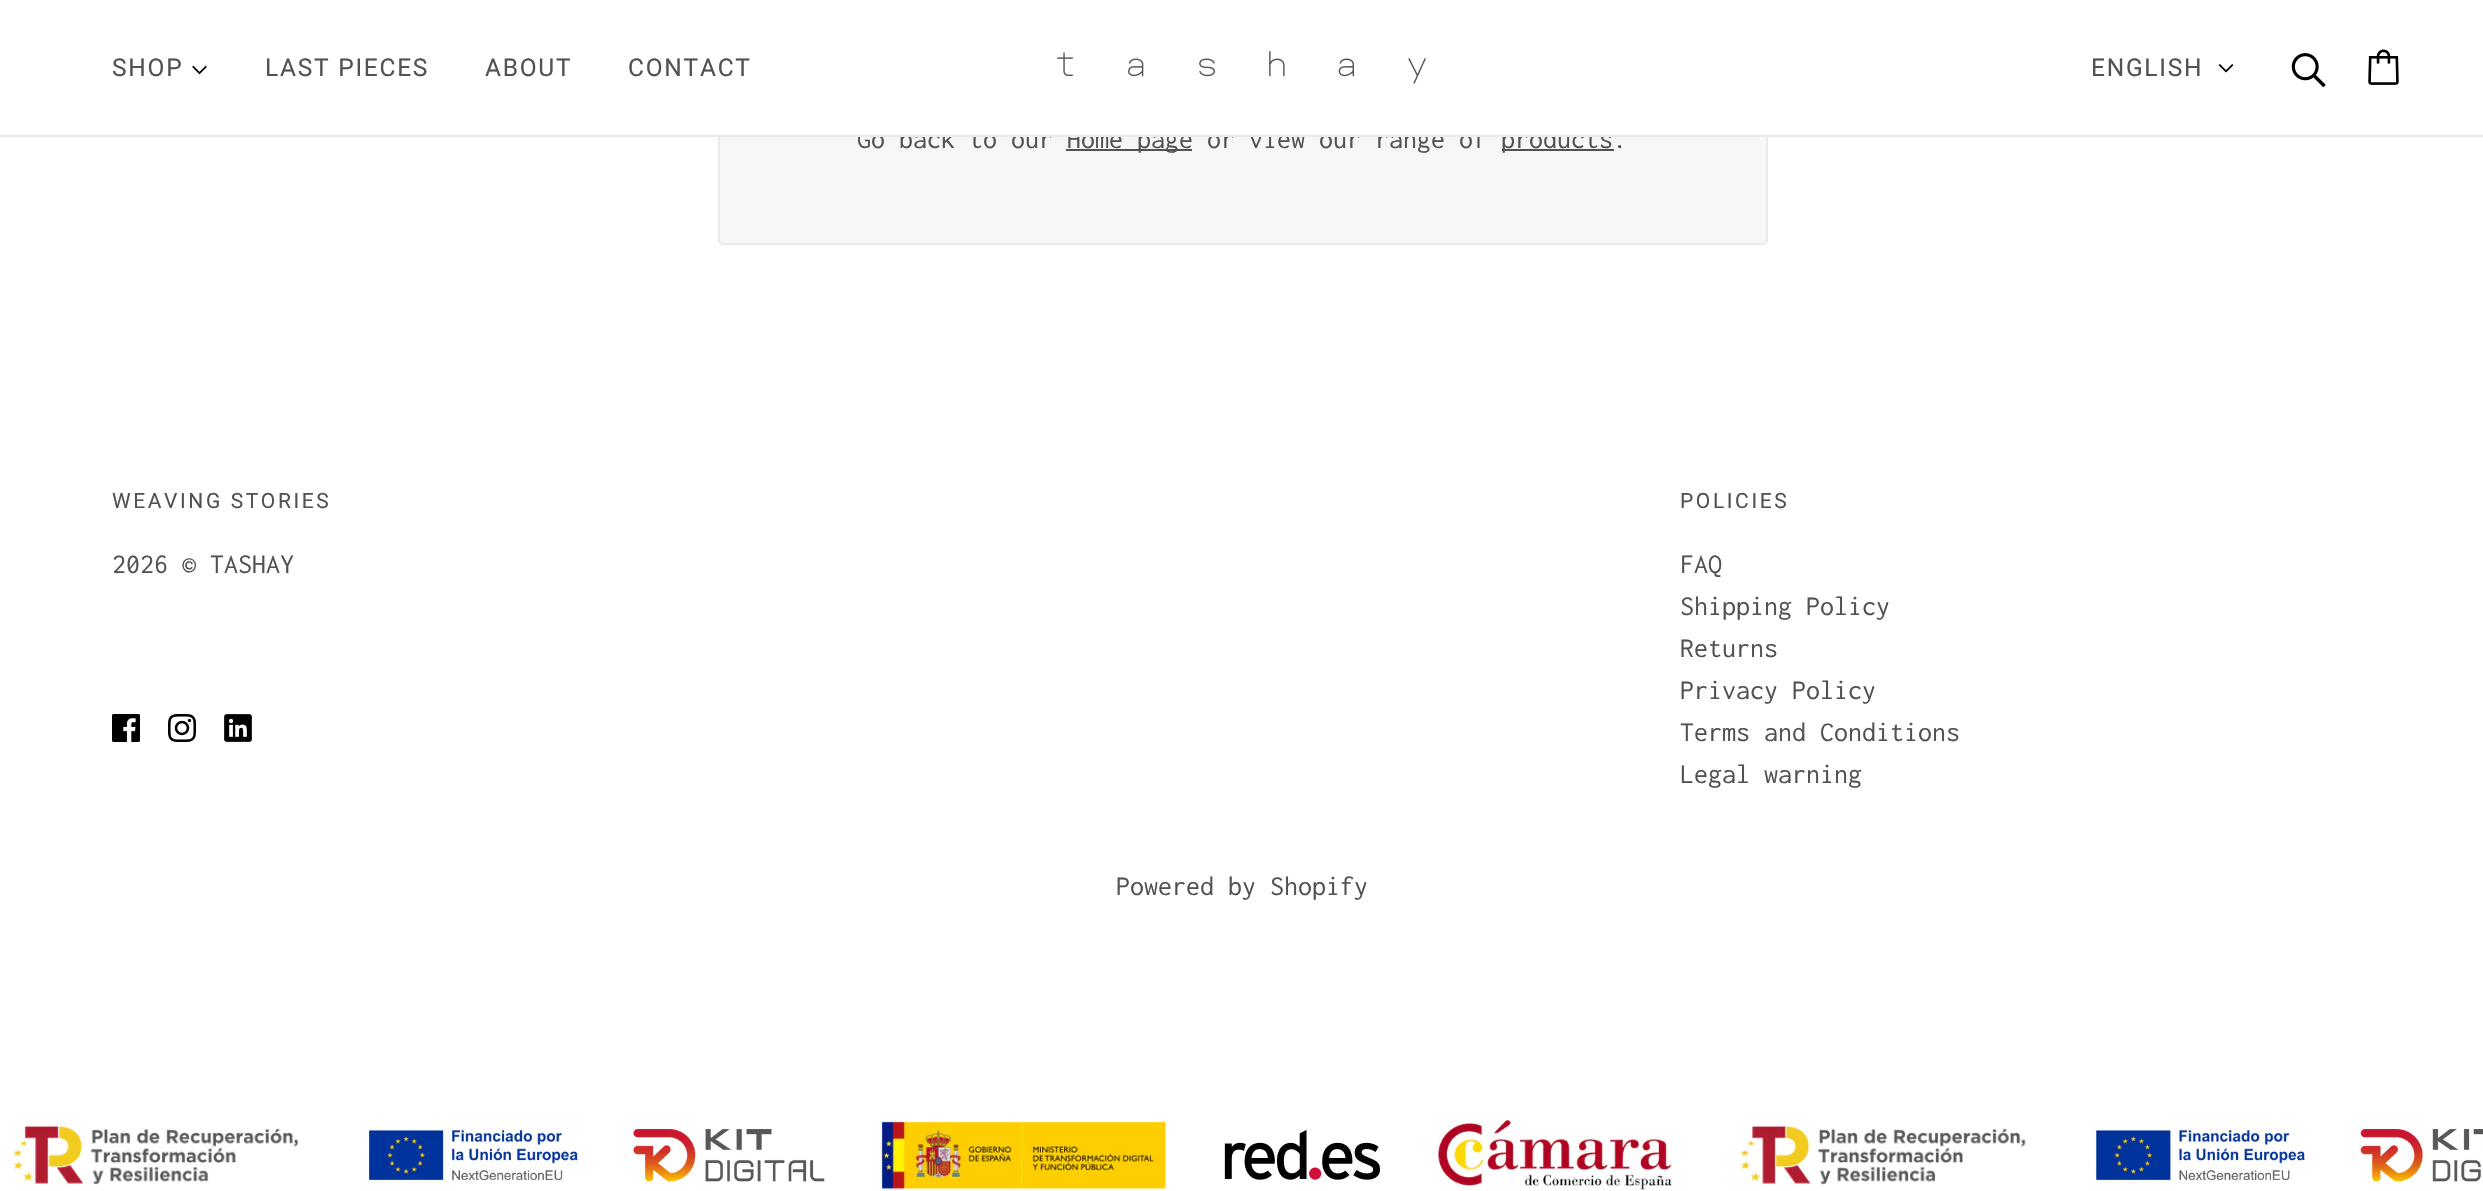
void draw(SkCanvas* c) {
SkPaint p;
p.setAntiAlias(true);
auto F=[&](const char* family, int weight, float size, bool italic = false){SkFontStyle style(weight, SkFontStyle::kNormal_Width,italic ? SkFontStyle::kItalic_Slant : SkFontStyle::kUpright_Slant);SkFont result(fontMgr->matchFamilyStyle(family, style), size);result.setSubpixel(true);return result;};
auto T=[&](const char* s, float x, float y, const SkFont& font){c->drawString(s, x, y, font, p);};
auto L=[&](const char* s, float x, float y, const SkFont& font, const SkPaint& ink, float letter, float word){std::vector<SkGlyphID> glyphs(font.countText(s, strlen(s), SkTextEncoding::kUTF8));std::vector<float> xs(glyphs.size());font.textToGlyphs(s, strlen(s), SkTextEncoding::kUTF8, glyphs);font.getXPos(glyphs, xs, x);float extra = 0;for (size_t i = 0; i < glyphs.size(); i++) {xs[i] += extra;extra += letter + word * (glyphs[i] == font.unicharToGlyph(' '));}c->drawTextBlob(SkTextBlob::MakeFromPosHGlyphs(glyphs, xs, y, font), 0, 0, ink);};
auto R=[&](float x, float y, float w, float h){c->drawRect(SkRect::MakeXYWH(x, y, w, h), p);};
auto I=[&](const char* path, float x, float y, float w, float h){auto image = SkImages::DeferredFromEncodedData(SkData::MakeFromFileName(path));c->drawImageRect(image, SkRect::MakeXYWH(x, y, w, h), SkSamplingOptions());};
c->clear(0xffffffff);
p.setColor(0xfff7f7f7);
c->drawRoundRect(SkRect::MakeXYWH(719,-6,1048,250),4,4,p);
p.setStroke(true);
p.setStrokeWidth(2);
p.setColor(0xffeaeaea);
c->drawRoundRect(SkRect::MakeXYWH(719,-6,1048,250),4,4,p);
auto f1 = F("Inconsolata",400,28);
p.setStroke(false);
p.setColor(0xff53524e);
T("Go back to our",857,148,f1);
R(1066,149,126,2);
T("Home page or view our range of",1067,148,f1);
R(1502,149,112,2);
T("products.",1501,148,f1);
p.setColor(0xffffffff);
R(718,0,1050,135);
p.setColor(0xffeaeaea);
R(0,135,2483,2);
auto f2 = F("Roboto",400,24.5);
p.setColor(0xff53524e);
L("SHOP",112,76,f2,p,1.75,0);
I("1.png",192,65,15,10);
L("LAST PIECES",265,76,f2,p,1.75,0);
L("ABOUT",485,76,f2,p,1.75,0);
L("CONTACT",628,76,f2,p,1.75,0);
I("2.png",1057,51,369,33);
L("ENGLISH",2091,76,f2,p,1.75,0);
I("3.png",2218,64,16,9);
I("4.png",2291,53,35,35);
I("5.png",2368,49,31,36);
auto f3 = F("Roboto",400,21);
L("WEAVING STORIES",112,508,f3,p,2.6,0);
T("2026 © TASHAY",112,573,f1);
I("6.png",112,714,28,28);
I("7.png",168,714,28,28);
I("8.png",224,714,28,28);
L("POLICIES",1680,508,f3,p,2.6,0);
T("FAQ",1680,573,f1);
T("Shipping Policy",1680,615,f1);
T("Returns",1680,657,f1);
T("Privacy Policy",1680,699,f1);
T("Terms and Conditions",1680,741,f1);
T("Legal warning",1680,783,f1);
T("Powered by Shopify",1116,895,f1);
I("9.png",13,1125,286,60);
I("10.png",367,1129,211,53);
I("11.png",633,1129,192,53);
I("12.png",881,1121,286,69);
I("13.png",1224,1129,156,51);
I("14.png",1438,1120,234,70);
I("15.png",1740,1125,286,60);
I("16.png",2095,1129,210,53);
I("17.png",2360,1129,123,53);
}
